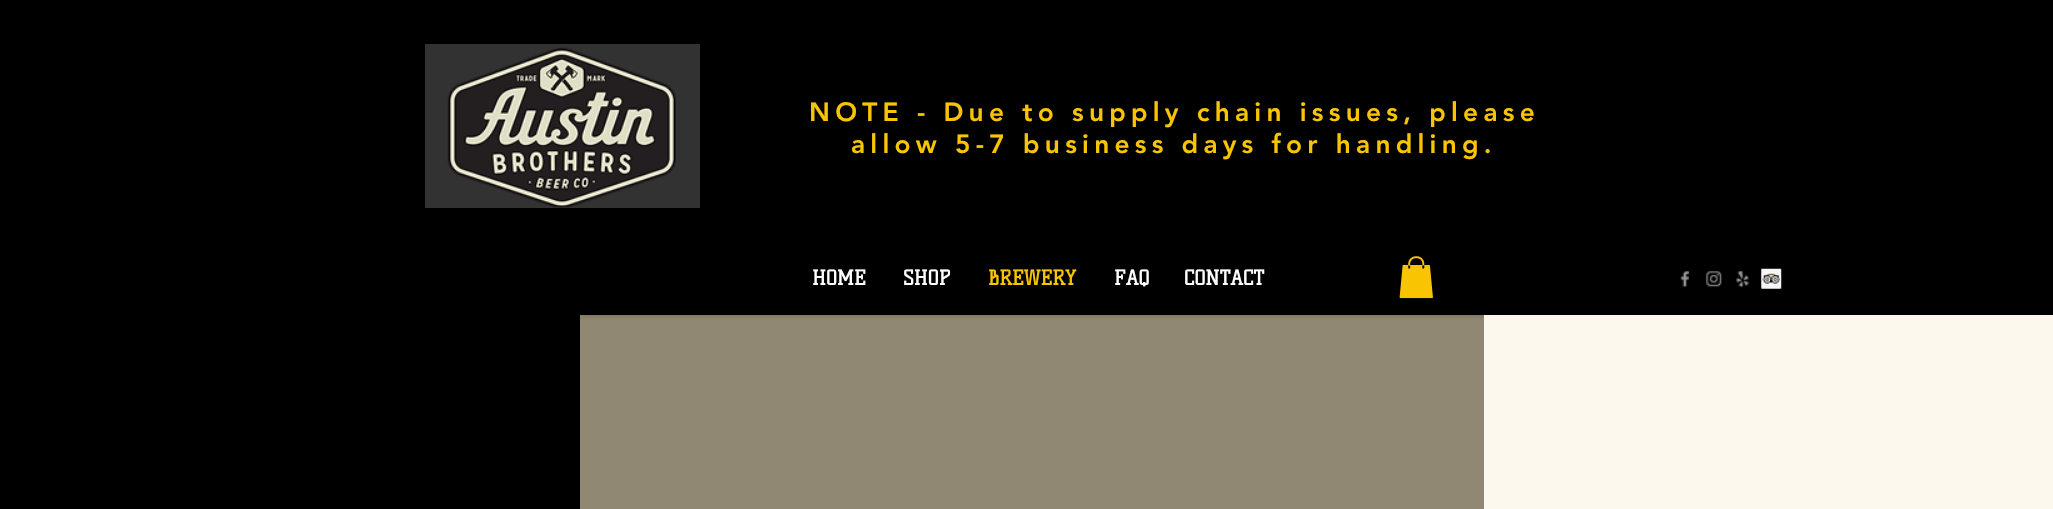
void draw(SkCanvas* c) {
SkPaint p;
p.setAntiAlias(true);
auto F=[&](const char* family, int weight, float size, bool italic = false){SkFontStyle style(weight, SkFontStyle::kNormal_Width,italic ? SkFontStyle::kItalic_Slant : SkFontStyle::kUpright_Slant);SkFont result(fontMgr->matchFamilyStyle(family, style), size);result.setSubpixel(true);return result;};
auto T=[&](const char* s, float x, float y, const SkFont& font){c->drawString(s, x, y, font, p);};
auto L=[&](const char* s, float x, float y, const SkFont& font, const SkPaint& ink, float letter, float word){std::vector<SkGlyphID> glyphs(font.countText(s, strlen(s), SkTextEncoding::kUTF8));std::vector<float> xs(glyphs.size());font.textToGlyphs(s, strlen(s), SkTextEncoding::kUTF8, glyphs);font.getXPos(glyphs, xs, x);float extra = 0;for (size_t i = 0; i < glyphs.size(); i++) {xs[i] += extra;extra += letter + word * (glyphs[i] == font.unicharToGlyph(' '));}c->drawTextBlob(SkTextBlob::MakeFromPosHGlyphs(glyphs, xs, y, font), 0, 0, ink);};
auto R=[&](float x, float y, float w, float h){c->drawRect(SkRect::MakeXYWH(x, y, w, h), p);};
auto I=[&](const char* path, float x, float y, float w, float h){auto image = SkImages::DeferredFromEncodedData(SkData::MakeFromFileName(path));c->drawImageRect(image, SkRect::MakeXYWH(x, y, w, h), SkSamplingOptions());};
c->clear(0xffffffff);
p.setColor(0xb3000000);
p.setMaskFilter(SkMaskFilter::MakeBlur(kNormal_SkBlurStyle, 3));
c->drawRect(SkRect::MakeXYWH(0,0,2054,315),p);
p.setMaskFilter(nullptr);
p.setColor(0xff000000);
R(0,0,2053,315);
p.setColor(0xff323232);
R(425,44,275,164);
I("1.png",447,47,229,161);
auto f1 = F("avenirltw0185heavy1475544",900,26.25);
p.setColor(0xfff9c402);
L("NOTE - Due to supply chain issues, please",809,121,f1,p,5.25,0);
L("allow 5-7 business days for handling.",851,153,f1,p,5.25,0);
auto f2 = F("Kelly Slab",700,20);
p.setColor(0xffffffff);
T("HOME",812,285,f2);
T("SHOP",903,285,f2);
p.setColor(0xfff9c402);
T("BREWERY",988,285,f2);
p.setColor(0xffffffff);
T("FAQ",1114,285,f2);
T("CONTACT",1184,285,f2);
I("2.png",1399,256,34,43);
I("3.png",1680,270,10,18);
I("4.png",1705,270,17,17);
I("5.png",1736,270,13,18);
I("6.png",1761,268,21,21);
p.setColor(0xff000000);
R(0,315,580,194);
p.setColor(0xd1786e54);
R(580,315,904,194);
p.setColor(0xfffcf8ed);
R(1484,315,569,194);
}
